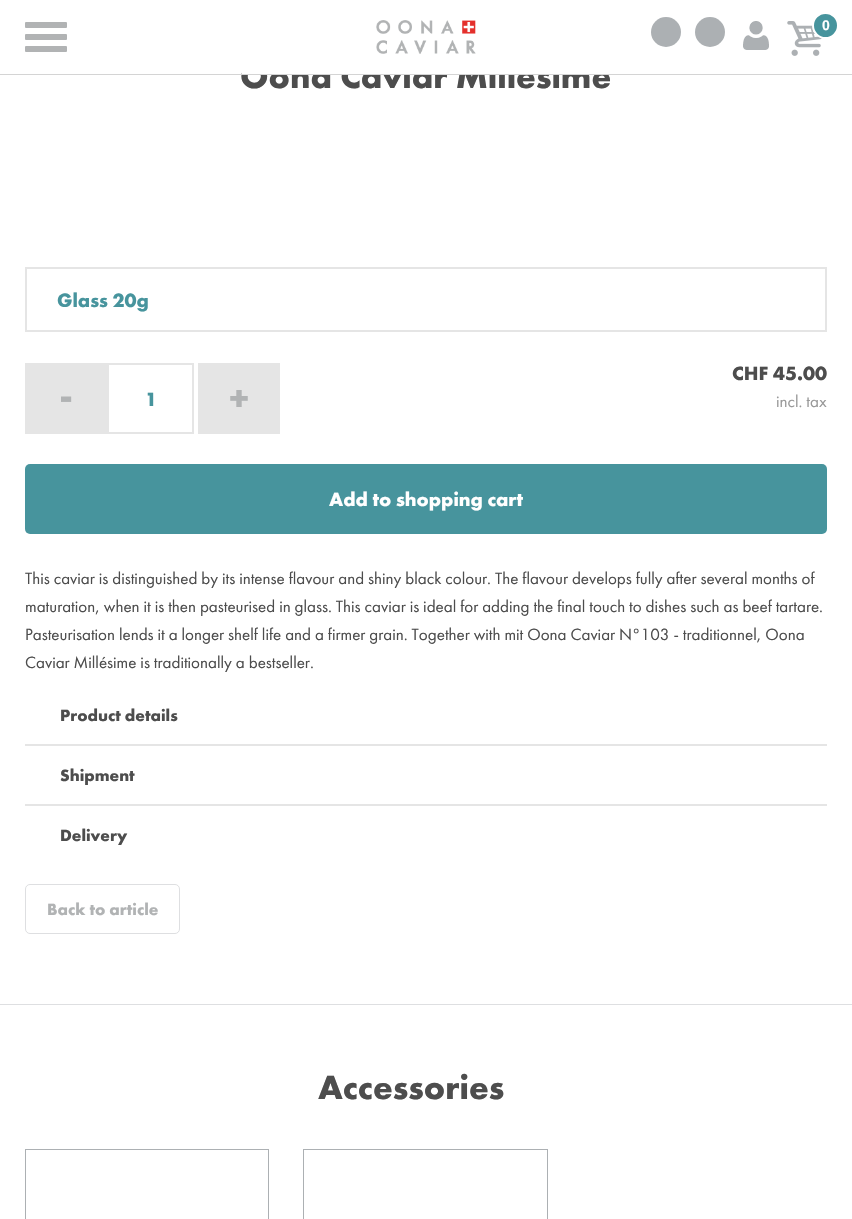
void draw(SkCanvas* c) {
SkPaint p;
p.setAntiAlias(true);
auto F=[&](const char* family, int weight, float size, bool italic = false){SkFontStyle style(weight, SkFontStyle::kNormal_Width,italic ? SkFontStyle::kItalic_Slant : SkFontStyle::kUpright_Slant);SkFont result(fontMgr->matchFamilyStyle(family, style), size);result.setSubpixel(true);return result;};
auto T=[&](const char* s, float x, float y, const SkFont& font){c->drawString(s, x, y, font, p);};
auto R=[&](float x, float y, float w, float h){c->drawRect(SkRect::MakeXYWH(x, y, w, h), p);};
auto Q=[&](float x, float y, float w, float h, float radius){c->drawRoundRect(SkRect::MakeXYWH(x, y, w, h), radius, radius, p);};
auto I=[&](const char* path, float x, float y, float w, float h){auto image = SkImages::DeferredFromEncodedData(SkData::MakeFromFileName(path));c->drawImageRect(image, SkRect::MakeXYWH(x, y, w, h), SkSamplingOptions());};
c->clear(0xffffffff);
auto f1 = F("Futura PT",700,35);
p.setColor(0xff4d4d4d);
T("Oona Caviar Millésime",240,88,f1);
p.setColor(0xffffffff);
R(242,62,366,12);
p.setColor(0xffd4d4d4);
R(0,74,852,1);
p.setColor(0xffb1b3b4);
Q(25,22,42,6,1);
Q(25,34,42,6,1);
Q(25,46,42,6,1);
I("1.png",376,20,100,34);
p.setColor(0xffacb0b3);
c->drawCircle(666,32,15,p);
c->drawCircle(710,32,15,p);
I("2.png",743,21,26,29);
I("3.png",787,21,35,35);
p.setColor(0xff47949d);
c->drawCircle(825.5,25.5,12.5,p);
p.setStroke(true);
p.setStrokeWidth(2);
p.setColor(0xffffffff);
c->drawCircle(825.5,25.5,12.5,p);
auto f2 = F("Liberation Sans",700,14);
p.setStroke(false);
T("0",822,30,f2);
p.setStroke(true);
p.setColor(0xffe5e5e5);
c->drawRect(SkRect::MakeXYWH(26,268,800,63),p);
auto f3 = F("Futura PT",700,20);
p.setStroke(false);
p.setColor(0xff47949d);
T("Glass 20g",57,307,f3);
p.setColor(0xffe5e5e5);
R(25,363,82,71);
auto f4 = F("Futura PT",700,40);
p.setColor(0xffb1b3b4);
T("-",59,410,f4);
p.setColor(0xffe5e5e5);
R(198,363,82,71);
p.setColor(0xffb1b3b4);
T("+",229,412,f4);
p.setStroke(true);
p.setColor(0xffe5e5e5);
c->drawRect(SkRect::MakeXYWH(108,364,85,69),p);
p.setStroke(false);
p.setColor(0xff47949d);
T("1",145,406,f3);
p.setColor(0xff4d4d4d);
T("CHF 45.00",732,380,f3);
auto f5 = F("Futura PT",400,17);
p.setColor(0xff999999);
T("incl. tax",776,407,f5);
p.setColor(0xff47949d);
Q(25,464,802,70,5);
p.setColor(0xffffffff);
T("Add to shopping cart",329,506,f3);
p.setColor(0xff4d4d4d);
T("This caviar is distinguished by its intense flavour and shiny black colour. The flavour develops fully after several months of",25,584,f5);
T("maturation, when it is then pasteurised in glass. This caviar is ideal for adding the final touch to dishes such as beef tartare.",25,612,f5);
T("Pasteurisation lends it a longer shelf life and a firmer grain. Together with mit Oona Caviar N°103 - traditionnel, Oona",25,640,f5);
T("Caviar Millésime is traditionally a bestseller.",25,668,f5);
auto f6 = F("Futura PT",700,17);
T("Product details",60,721,f6);
p.setColor(0xffe5e5e5);
R(25,744,802,2);
p.setColor(0xff4d4d4d);
T("Shipment",60,781,f6);
p.setColor(0xffe5e5e5);
R(25,804,802,2);
p.setColor(0xff4d4d4d);
T("Delivery",60,841,f6);
p.setStroke(true);
p.setStrokeWidth(1);
p.setColor(0xffdedfe1);
c->drawRoundRect(SkRect::MakeXYWH(25.5,884.5,154,49),4.5,4.5,p);
p.setStroke(false);
p.setColor(0xffb1b3b4);
T("Back to article",47,915,f6);
p.setColor(0xffdedfe1);
R(0,1004,852,1);
p.setColor(0xff4d4d4d);
T("Accessories",318,1099,f1);
p.setStroke(true);
p.setColor(0xffacb0b3);
c->drawRect(SkRect::MakeXYWH(25.5,1149.5,243,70),p);
c->drawRect(SkRect::MakeXYWH(303.5,1149.5,244,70),p);
}
